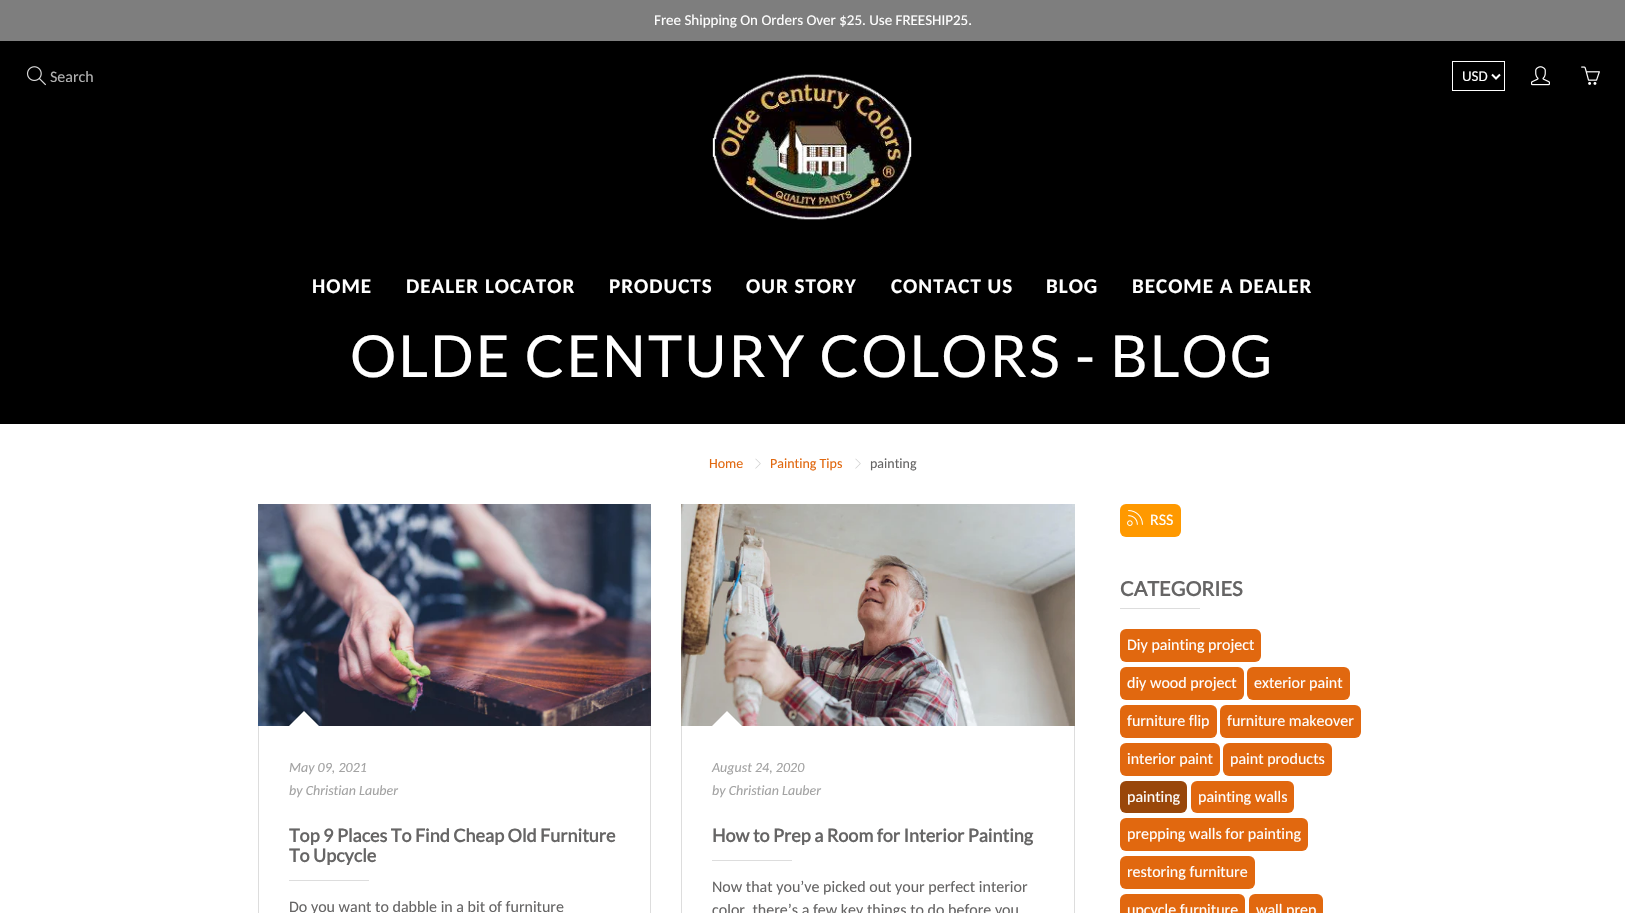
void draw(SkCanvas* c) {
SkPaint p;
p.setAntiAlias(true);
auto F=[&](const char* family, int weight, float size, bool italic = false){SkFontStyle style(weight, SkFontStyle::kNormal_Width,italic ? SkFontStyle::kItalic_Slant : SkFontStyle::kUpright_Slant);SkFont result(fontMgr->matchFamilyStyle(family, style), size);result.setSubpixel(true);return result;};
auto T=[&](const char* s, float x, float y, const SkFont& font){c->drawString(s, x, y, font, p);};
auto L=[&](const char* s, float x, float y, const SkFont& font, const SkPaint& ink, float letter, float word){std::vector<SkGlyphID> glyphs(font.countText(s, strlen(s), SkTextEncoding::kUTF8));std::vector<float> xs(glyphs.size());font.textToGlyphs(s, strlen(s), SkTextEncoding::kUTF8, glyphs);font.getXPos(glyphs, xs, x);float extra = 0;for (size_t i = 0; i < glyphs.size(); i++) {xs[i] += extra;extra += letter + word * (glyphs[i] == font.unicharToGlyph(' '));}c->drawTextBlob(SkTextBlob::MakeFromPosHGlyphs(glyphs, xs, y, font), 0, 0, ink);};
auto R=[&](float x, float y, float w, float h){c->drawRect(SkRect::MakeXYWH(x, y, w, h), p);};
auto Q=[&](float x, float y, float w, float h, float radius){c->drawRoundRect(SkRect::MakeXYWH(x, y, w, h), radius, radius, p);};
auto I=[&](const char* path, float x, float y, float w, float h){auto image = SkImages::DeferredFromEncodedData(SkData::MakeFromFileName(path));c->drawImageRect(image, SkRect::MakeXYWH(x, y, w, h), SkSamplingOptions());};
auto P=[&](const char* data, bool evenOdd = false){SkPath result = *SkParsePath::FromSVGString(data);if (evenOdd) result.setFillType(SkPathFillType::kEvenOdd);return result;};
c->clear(0xffffffff);
p.setColor(0xff7e7e7e);
R(0,0,1625,41);
auto f1 = F("Carlito",400,15);
p.setColor(0xffffffff);
T("Free Shipping On Orders Over $25. Use FREESHIP25.",654,25,f1);
p.setColor(0xff000000);
R(0,41,1625,383);
I("1.png",26,66,20,20);
auto f2 = F("Carlito",400,16);
p.setColor(0xffb3b3b3);
T("Search",50,82,f2);
I("2.png",712,74,200,146);
p.setStroke(true);
p.setStrokeWidth(1);
p.setColor(0xffffffff);
c->drawRect(SkRect::MakeXYWH(1452.5,61.5,52,29),p);
p.setStrokeWidth(2);
c->drawPath(P("M1492 74.5l4 4l4-4"),p);
p.setStroke(false);
T("USD",1462,81,f1);
I("3.png",1531,66,19,20);
I("4.png",1581,66,19,19);
auto f3 = F("Carlito",700,21);
L("HOME",312,293,f3,p,1,0);
L("DEALER LOCATOR",406,293,f3,p,1,0);
L("PRODUCTS",609,293,f3,p,1,0);
L("OUR STORY",746,293,f3,p,1,0);
L("CONTACT US",891,293,f3,p,1,0);
L("BLOG",1046,293,f3,p,1,0);
L("BECOME A DEALER",1132,293,f3,p,1,0);
auto f4 = F("Lato",400,58);
L("OLDE CENTURY COLORS - BLOG",350,377,f4,p,2,0);
auto f5 = F("Carlito",400,14);
p.setColor(0xffe1680f);
T("Home",709,468,f5);
I("5.png",755,458,6,11);
T("Painting Tips",770,468,f5);
I("5.png",855,458,6,11);
p.setColor(0xff666565);
T("painting",870,468,f5);
I("6.png",258,504,393,222);
p.setColor(0xffdddddd);
c->drawPath(P("M258 726h393v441c0 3-3 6-6 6h-381c-3 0-6-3-6-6zm1 0h391v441c0 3-2 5-5 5h-381c-3 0-5-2-5-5z",true),p);
p.setColor(0xffffffff);
c->drawPath(P("M319 726h-30l15-15z"),p);
auto f6 = F("Carlito",400,14,true);
p.setColor(0xffa3a3a3);
T("May 09, 2021",289,772,f6);
T("by Christian Lauber",289,795,f6);
auto f7 = F("Lato",700,18);
p.setColor(0xff666565);
T("Top 9 Places To Find Cheap Old Furniture",289,842,f7);
T("To Upcycle",289,862,f7);
p.setColor(0xffdddddd);
R(289,880,80,1);
p.setColor(0xff666565);
T("Do you want to dabble in a bit of furniture",289,912,f2);
I("7.png",681,504,394,222);
p.setColor(0xffdddddd);
c->drawPath(P("M681 726h394v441c0 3-3 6-6 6h-382c-3 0-6-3-6-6zm1 0h392v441c0 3-2 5-5 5h-382c-3 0-5-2-5-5z",true),p);
p.setColor(0xffffffff);
c->drawPath(P("M742 726h-30l15-15z"),p);
p.setColor(0xffa3a3a3);
T("August 24, 2020",712,772,f6);
T("by Christian Lauber",712,795,f6);
p.setColor(0xff666565);
T("How to Prep a Room for Interior Painting",712,842,f7);
p.setColor(0xffdddddd);
R(712,860,80,1);
p.setColor(0xff666565);
T("Now that you’ve picked out your perfect interior",712,892,f2);
T("color, there’s a few key things to do before you",712,915,f2);
p.setColor(0xffff9900);
Q(1120,504,61,33,6);
I("8.png",1127,510,16,16);
p.setColor(0xffffffff);
T("RSS",1150,525,f2);
auto f8 = F("Lato",700,20);
p.setColor(0xff666565);
T("CATEGORIES",1120,596,f8);
p.setColor(0xffdddddd);
R(1120,608,80,1);
p.setColor(0xffe1680f);
Q(1120,629,141,33,6);
p.setColor(0xffffffff);
T("Diy painting project",1127,650,f2);
p.setColor(0xffe1680f);
Q(1120,667,124,33,6);
p.setColor(0xffffffff);
T("diy wood project",1127,688,f2);
p.setColor(0xffe1680f);
Q(1247,667,103,33,6);
p.setColor(0xffffffff);
T("exterior paint",1254,688,f2);
p.setColor(0xffe1680f);
Q(1120,705,97,33,6);
p.setColor(0xffffffff);
T("furniture flip",1127,726,f2);
p.setColor(0xffe1680f);
Q(1220,705,141,33,6);
p.setColor(0xffffffff);
T("furniture makeover",1227,726,f2);
p.setColor(0xffe1680f);
Q(1120,743,100,33,6);
p.setColor(0xffffffff);
T("interior paint",1127,764,f2);
p.setColor(0xffe1680f);
Q(1223,743,109,33,6);
p.setColor(0xffffffff);
T("paint products",1230,764,f2);
p.setColor(0xff99470a);
Q(1120,781,67,32,6);
p.setColor(0xffffffff);
T("painting",1127,802,f2);
p.setColor(0xffe1680f);
Q(1191,781,103,32,6);
p.setColor(0xffffffff);
T("painting walls",1198,802,f2);
p.setColor(0xffe1680f);
Q(1120,818,188,33,6);
p.setColor(0xffffffff);
T("prepping walls for painting",1127,839,f2);
p.setColor(0xffe1680f);
Q(1120,856,135,33,6);
p.setColor(0xffffffff);
T("restoring furniture",1127,877,f2);
p.setColor(0xffe1680f);
Q(1120,894,125,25,6);
p.setColor(0xffffffff);
T("upcycle furniture",1127,915,f2);
p.setColor(0xffe1680f);
Q(1249,894,74,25,6);
p.setColor(0xffffffff);
T("wall prep",1256,915,f2);
}
